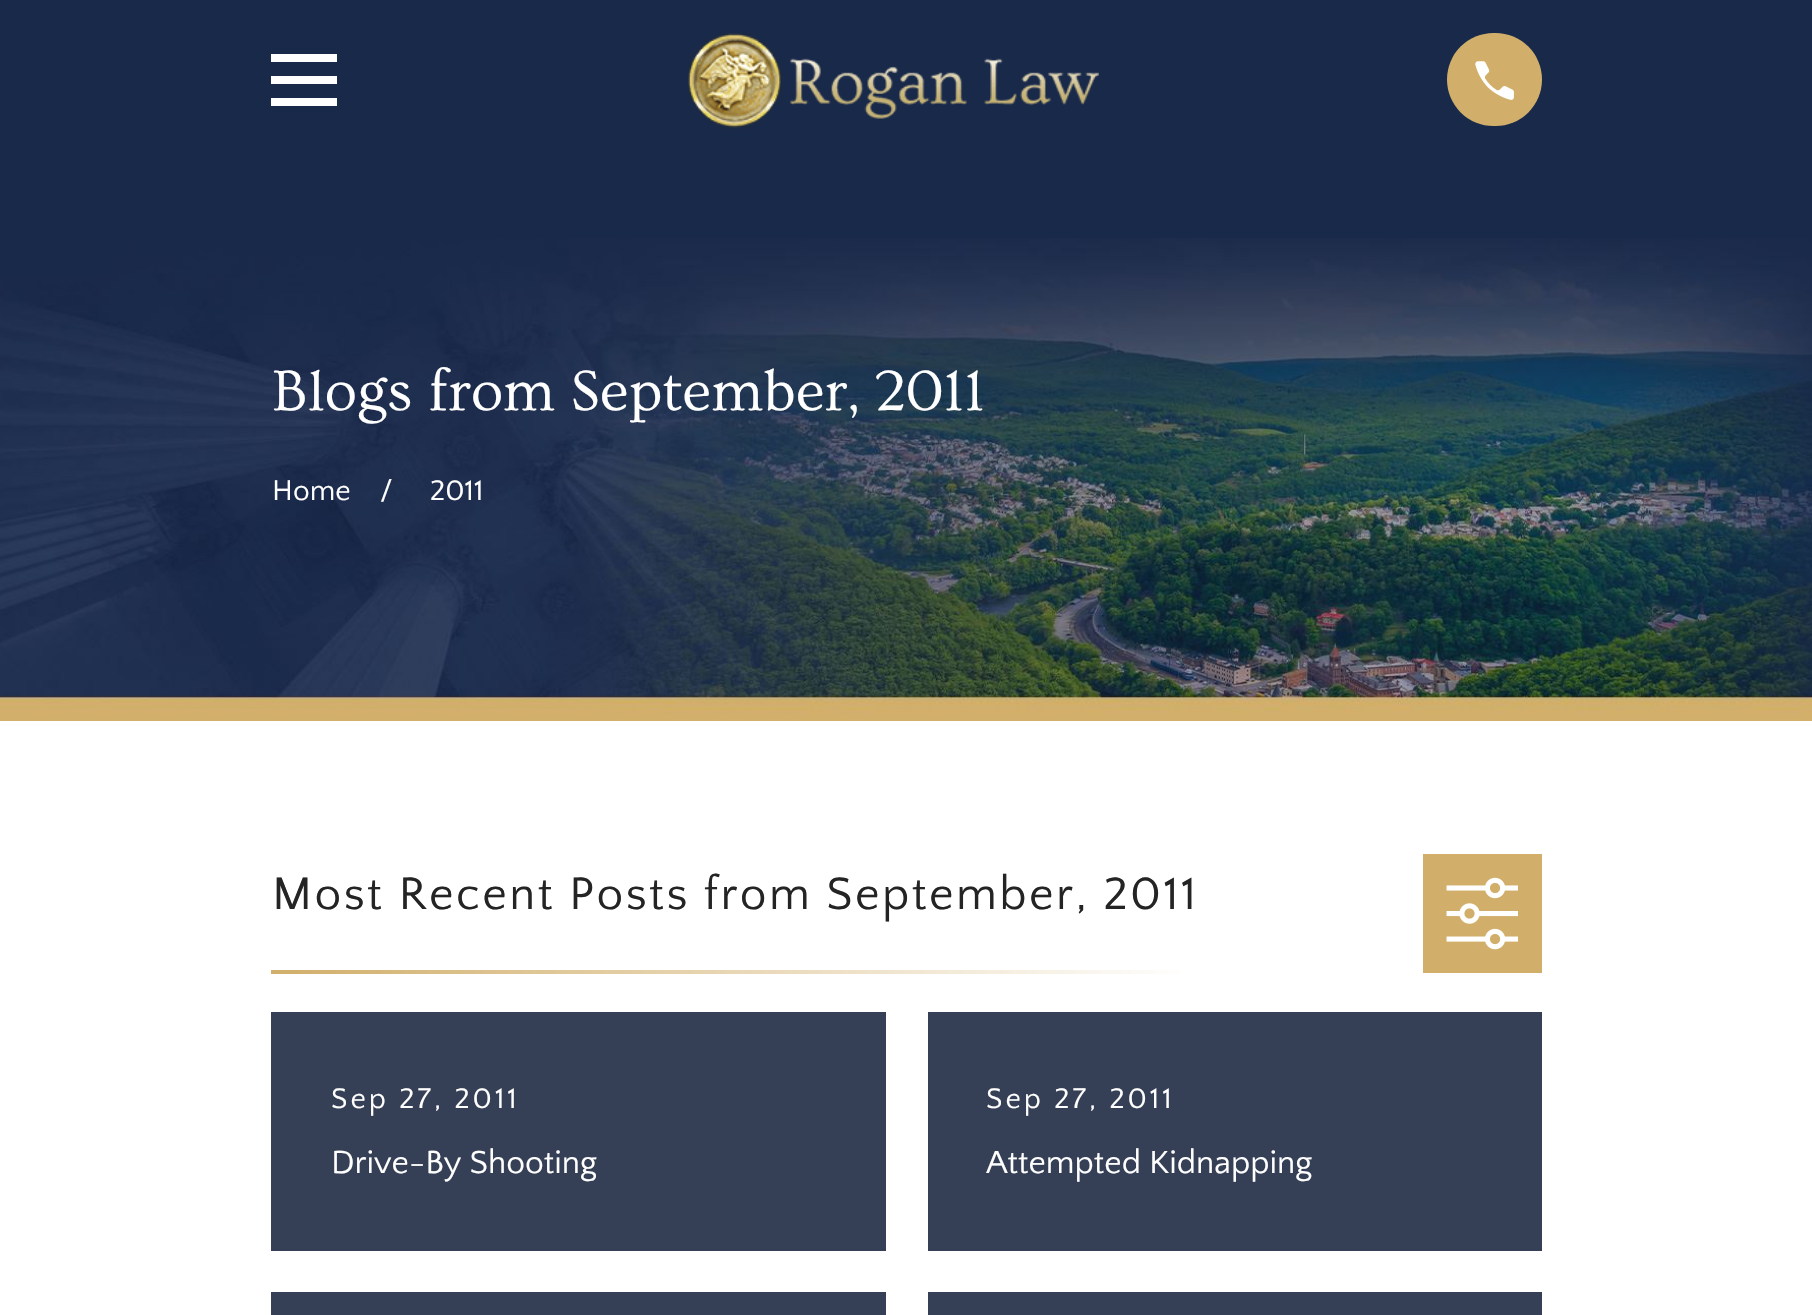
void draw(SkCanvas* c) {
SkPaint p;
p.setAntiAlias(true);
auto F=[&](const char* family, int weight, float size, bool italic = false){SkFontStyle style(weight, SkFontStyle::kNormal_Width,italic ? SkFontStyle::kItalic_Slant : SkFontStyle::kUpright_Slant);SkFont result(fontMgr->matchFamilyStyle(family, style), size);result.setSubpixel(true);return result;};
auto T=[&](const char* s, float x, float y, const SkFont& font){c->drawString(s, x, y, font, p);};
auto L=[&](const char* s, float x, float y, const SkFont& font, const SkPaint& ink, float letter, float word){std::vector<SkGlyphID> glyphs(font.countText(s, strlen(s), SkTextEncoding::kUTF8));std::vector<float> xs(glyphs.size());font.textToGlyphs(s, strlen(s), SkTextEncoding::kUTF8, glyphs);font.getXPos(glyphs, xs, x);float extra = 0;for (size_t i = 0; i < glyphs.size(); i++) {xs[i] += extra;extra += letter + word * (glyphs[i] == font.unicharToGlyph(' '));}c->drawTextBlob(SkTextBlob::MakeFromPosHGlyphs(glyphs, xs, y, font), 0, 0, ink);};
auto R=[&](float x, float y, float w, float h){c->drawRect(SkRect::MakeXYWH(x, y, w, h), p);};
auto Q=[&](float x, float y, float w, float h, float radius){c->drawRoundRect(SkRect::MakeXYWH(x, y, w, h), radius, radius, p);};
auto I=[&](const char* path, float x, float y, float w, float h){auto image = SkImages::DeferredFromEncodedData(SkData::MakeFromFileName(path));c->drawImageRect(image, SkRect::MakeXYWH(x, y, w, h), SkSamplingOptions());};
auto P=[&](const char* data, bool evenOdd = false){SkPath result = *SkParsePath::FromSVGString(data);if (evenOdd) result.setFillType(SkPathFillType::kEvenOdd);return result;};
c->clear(0xffffffff);
p.setColor(0xff19294a);
R(0,0,1812,238);
p.setColor(0xffffffff);
c->drawPath(P("M271 54v8h66v-8zm0 22v8h66v-8zm0 22v8h66v-8z"),p);
I("1.png",686,31,413,99);
p.setColor(0xffd1af6b);
Q(1447,33,95,93,46.5);
I("2.png",1475,61,39,39);
I("3.png",0,238,1812,483);
auto f1 = F("Ovo",400,59.5);
p.setColor(0xffffffff);
T("Blogs from September, 2011",272,410,f1);
auto f2 = F("Quattrocento Sans",400,29.75);
T("Home",272,500,f2);
T("/",380,500,f2);
T("2011",430,500,f2);
auto f3 = F("Quattrocento Sans",400,47.6);
p.setColor(0xff242424);
L("Most Recent Posts from September, 2011",272,909,f3,p,2.4,0);
{
const SkColor colors[] = {0xffd1af6b,0xffffffff};
const float stops[] = {0,1};
const SkPoint ends[] = {{271,971}, {1197,971}};
p.setShader(SkGradientShader::MakeLinear(ends, colors, stops, 2, SkTileMode::kClamp));
p.setAlpha(255);
}
R(271,970,910,4);
p.setShader(nullptr);
p.setColor(0xffd1af6b);
R(1423,854,119,119);
I("4.png",1446,877,72,73);
p.setColor(0xff354056);
R(271,1012,615,239);
p.setColor(0xffffffff);
L("Sep 27, 2011",331,1108,f2,p,3,0);
auto f4 = F("Quattrocento Sans",400,33.5);
T("Drive-By Shooting",331,1173,f4);
p.setColor(0xff354056);
R(928,1012,614,239);
p.setColor(0xffffffff);
L("Sep 27, 2011",986,1108,f2,p,3,0);
T("Attempted Kidnapping",986,1173,f4);
p.setColor(0xff354056);
R(271,1292,615,23);
R(928,1292,614,23);
}
